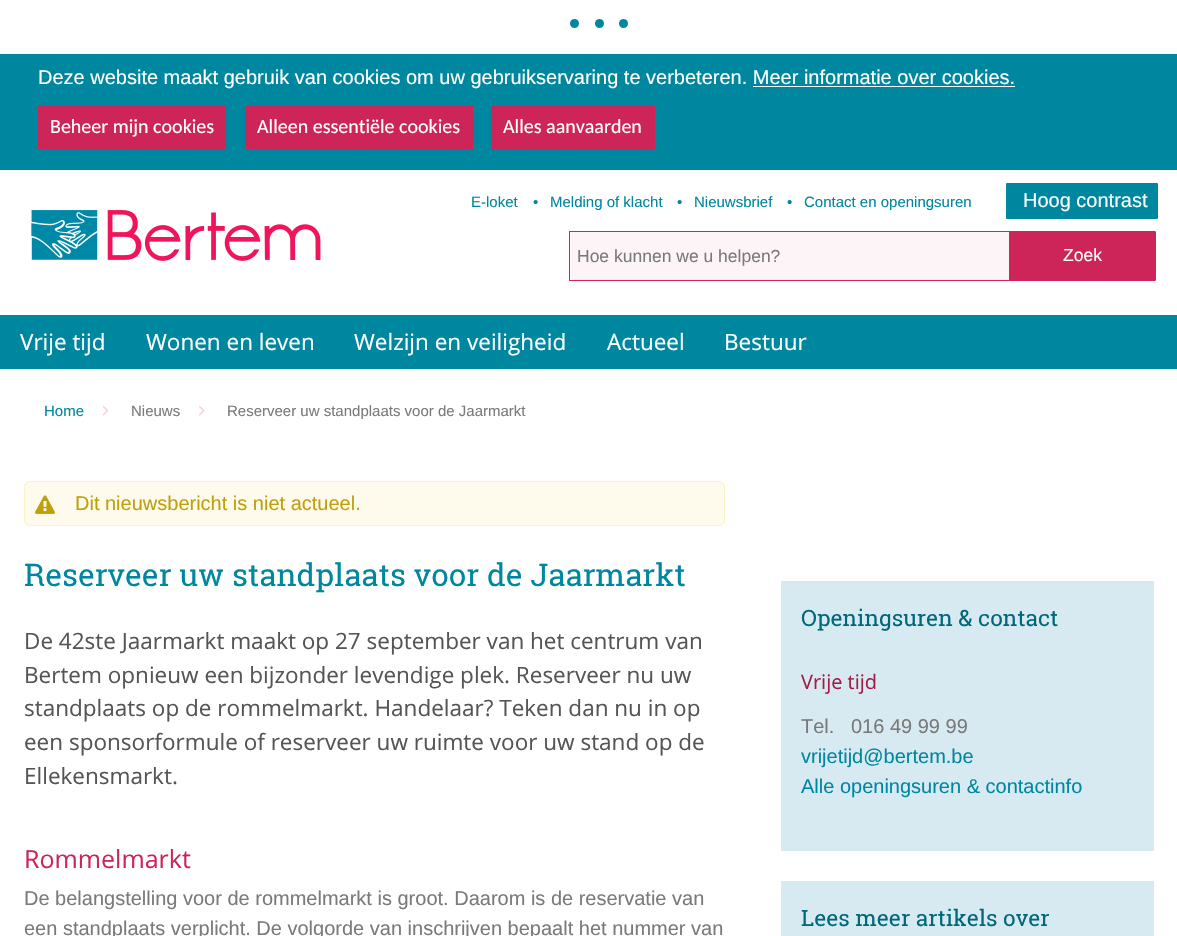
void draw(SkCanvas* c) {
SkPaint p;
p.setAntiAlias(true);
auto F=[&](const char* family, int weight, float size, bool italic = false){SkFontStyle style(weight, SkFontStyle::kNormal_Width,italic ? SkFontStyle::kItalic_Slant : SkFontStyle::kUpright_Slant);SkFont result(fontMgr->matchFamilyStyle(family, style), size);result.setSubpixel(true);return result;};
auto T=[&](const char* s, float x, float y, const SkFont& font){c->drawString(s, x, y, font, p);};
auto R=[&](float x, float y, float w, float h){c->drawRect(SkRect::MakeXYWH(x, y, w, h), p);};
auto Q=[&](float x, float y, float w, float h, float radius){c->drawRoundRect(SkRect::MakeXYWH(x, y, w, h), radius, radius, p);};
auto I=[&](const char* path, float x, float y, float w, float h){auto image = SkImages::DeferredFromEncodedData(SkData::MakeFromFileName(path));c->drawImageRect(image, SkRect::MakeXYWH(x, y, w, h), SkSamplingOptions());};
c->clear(0xffffffff);
p.setColor(0xff0087a0);
c->drawCircle(574.5,23.5,4.5,p);
c->drawCircle(599.5,23.5,4.5,p);
c->drawCircle(623.5,23.5,4.5,p);
R(0,54,1177,116);
auto f1 = F("Liberation Sans",400,20);
p.setColor(0xffffffff);
T("Deze website maakt gebruik van cookies om uw gebruikservaring te verbeteren. Meer informatie over cookies.",38,84,f1);
R(753,86,262,1);
p.setColor(0xffcd2559);
R(38,106,188,43);
auto f2 = F("Carlito",400,20);
p.setColor(0xffffffff);
T("Beheer mijn cookies",50,133,f2);
p.setColor(0xffcd2559);
R(245,106,228,43);
p.setColor(0xffffffff);
T("Alleen essentiële cookies",257,133,f2);
p.setColor(0xffcd2559);
R(491,106,164,43);
p.setColor(0xffffffff);
T("Alles aanvaarden",503,133,f2);
auto f3 = F("Liberation Sans",400,15);
p.setColor(0xff0087a0);
T("E-loket",471,207,f3);
T("•",533,207,f3);
T("Melding of klacht",550,207,f3);
T("•",677,207,f3);
T("Nieuwsbrief",694,207,f3);
T("•",787,207,f3);
T("Contact en openingsuren",804,207,f3);
Q(1006,183,152,36,1);
p.setColor(0xffffffff);
T("Hoog contrast",1023,207,f1);
I("1.png",31,210,290,51);
p.setColor(0xfffdf4f7);
c->drawRect(SkRect::MakeXYWH(569.5,231.5,440,49),p);
p.setStroke(true);
p.setStrokeWidth(1);
p.setColor(0xffcd2559);
c->drawRect(SkRect::MakeXYWH(569.5,231.5,440,49),p);
auto f4 = F("Liberation Sans",400,17.5);
p.setStroke(false);
p.setColor(0xff7a7a7a);
T("Hoe kunnen we u helpen?",577,262,f4);
p.setColor(0xffcd2559);
c->drawRoundRect(SkRect::MakeXYWH(1009.5,231.5,146,49),.5,.5,p);
p.setStroke(true);
c->drawRoundRect(SkRect::MakeXYWH(1009.5,231.5,146,49),.5,.5,p);
p.setStroke(false);
p.setColor(0xffffffff);
T("Zoek",1063,261,f4);
p.setColor(0xff0087a0);
R(0,315,1177,54);
auto f5 = F("Open Sans",400,22.5);
p.setColor(0xffffffff);
T("Vrije tijd",20,350,f5);
T("Wonen en leven",146,350,f5);
T("Welzijn en veiligheid",354,350,f5);
T("Actueel",607,350,f5);
T("Bestuur",724,350,f5);
p.setColor(0xff0087a0);
T("Home",44,416,f3);
I("2.png",102,405,7,11);
p.setColor(0xff7a7a7a);
T("Nieuws",131,416,f3);
I("3.png",199,405,6,11);
T("Reserveer uw standplaats voor de Jaarmarkt",227,416,f3);
p.setColor(0xfffefbec);
c->drawRoundRect(SkRect::MakeXYWH(24.5,481.5,700,44),5.5,5.5,p);
p.setStroke(true);
p.setColor(0xfffcf2c5);
c->drawRoundRect(SkRect::MakeXYWH(24.5,481.5,700,44),5.5,5.5,p);
I("4.png",35,495,20,19);
p.setStroke(false);
p.setColor(0xffc19f0b);
T("Dit nieuwsbericht is niet actueel.",75,510,f1);
auto f6 = F("Roboto Slab",400,31.25);
p.setColor(0xff0087a0);
T("Reserveer uw standplaats voor de Jaarmarkt",24,586,f6);
p.setColor(0xff555555);
T("De 42ste Jaarmarkt maakt op 27 september van het centrum van",24,649,f5);
T("Bertem opnieuw een bijzonder levendige plek. Reserveer nu uw",24,683,f5);
T("standplaats op de rommelmarkt. Handelaar? Teken dan nu in op",24,716,f5);
T("een sponsorformule of reserveer uw ruimte voor uw stand op de",24,750,f5);
T("Ellekensmarkt.",24,784,f5);
auto f7 = F("Open Sans",400,25);
p.setColor(0xffcd2559);
T("Rommelmarkt",24,868,f7);
p.setColor(0xff7a7a7a);
T("De belangstelling voor de rommelmarkt is groot. Daarom is de reservatie van",24,905,f1);
T("een standplaats verplicht. De volgorde van inschrijven bepaalt het nummer van",24,935,f1);
p.setColor(0xffd7eaf1);
Q(781,581,373,270,1);
auto f8 = F("Roboto Slab",400,22.5);
p.setColor(0xff00687a);
T("Openingsuren & contact",801,626,f8);
auto f9 = F("Open Sans",400,20);
p.setColor(0xffa21d46);
T("Vrije tijd",801,689,f9);
p.setColor(0xff7a7a7a);
T("Tel.",801,733,f1);
T("016 49 99 99",851,733,f1);
p.setColor(0xff0087a0);
T("vrijetijd@bertem.be",801,763,f1);
T("Alle openingsuren & contactinfo",801,793,f1);
p.setColor(0xffd7eaf1);
Q(781,881,373,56,1);
p.setColor(0xff00687a);
T("Lees meer artikels over",801,926,f8);
}
